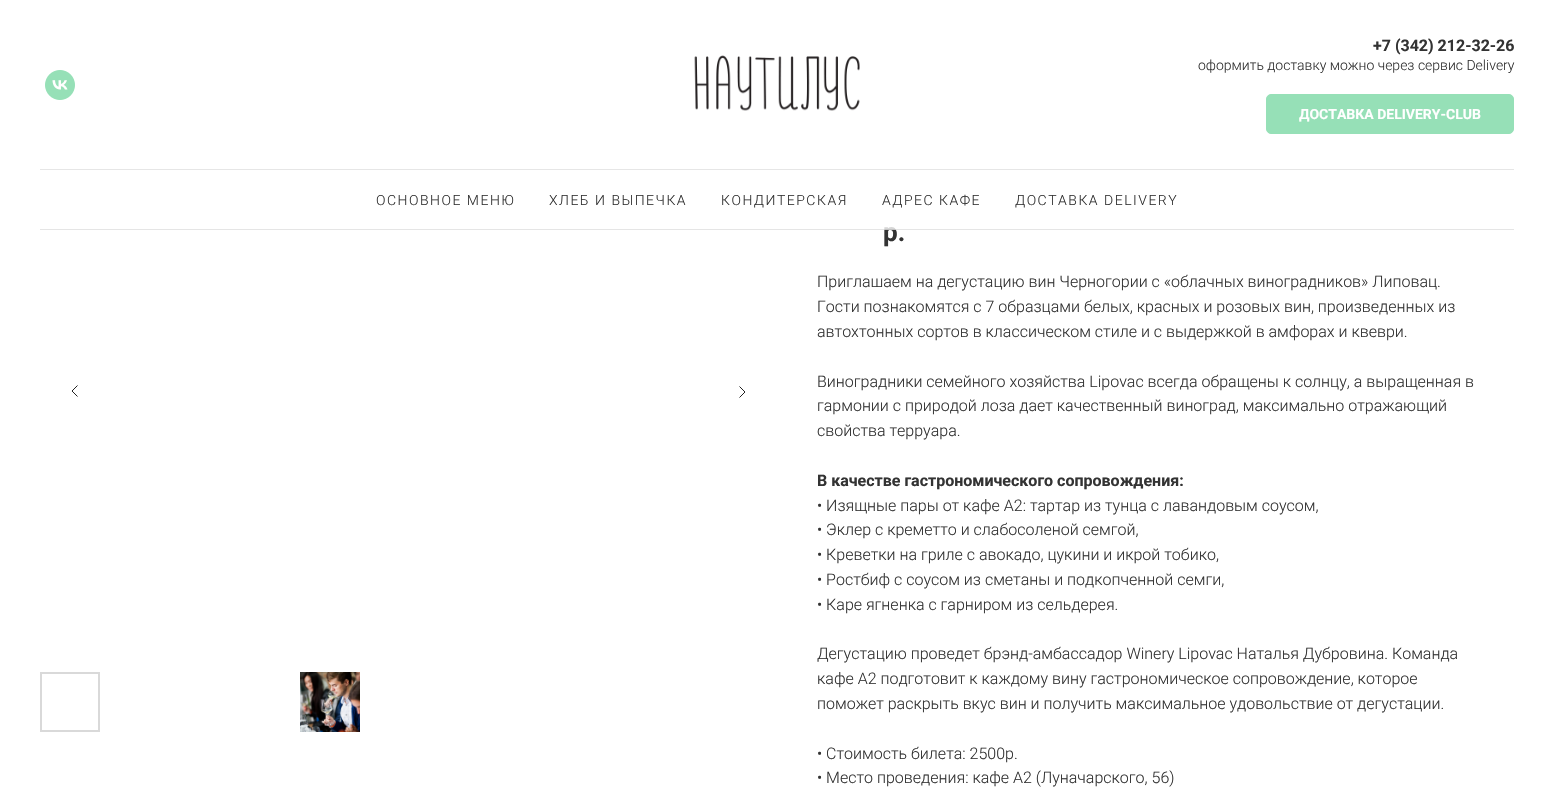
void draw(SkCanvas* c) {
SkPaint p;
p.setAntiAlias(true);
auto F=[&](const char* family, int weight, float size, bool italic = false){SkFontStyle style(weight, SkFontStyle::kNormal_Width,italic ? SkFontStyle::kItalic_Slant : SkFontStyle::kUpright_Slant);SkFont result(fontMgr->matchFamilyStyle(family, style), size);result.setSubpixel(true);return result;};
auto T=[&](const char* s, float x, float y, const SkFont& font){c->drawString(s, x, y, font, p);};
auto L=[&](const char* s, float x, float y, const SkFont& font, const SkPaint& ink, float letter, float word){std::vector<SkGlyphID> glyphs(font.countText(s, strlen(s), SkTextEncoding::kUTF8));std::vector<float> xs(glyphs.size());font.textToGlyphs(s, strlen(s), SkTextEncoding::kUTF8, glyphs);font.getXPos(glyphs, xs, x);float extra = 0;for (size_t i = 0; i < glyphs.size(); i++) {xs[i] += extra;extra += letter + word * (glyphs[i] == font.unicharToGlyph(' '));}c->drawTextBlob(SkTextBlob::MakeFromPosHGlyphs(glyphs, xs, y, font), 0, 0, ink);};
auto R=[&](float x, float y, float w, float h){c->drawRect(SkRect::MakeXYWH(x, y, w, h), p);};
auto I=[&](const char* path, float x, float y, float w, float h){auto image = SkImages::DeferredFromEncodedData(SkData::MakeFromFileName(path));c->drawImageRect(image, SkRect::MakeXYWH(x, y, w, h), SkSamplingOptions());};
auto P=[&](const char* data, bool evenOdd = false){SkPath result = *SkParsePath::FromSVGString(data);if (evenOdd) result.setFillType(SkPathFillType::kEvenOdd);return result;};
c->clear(0xffffffff);
auto f1 = F("Roboto",700,26);
p.setColor(0xff333333);
T("р.",883,241,f1);
p.setColor(0xccffffff);
R(884,227,13,3);
I("1.png",694,55,166,56);
I("2.png",45,70,30,30);
auto f2 = F("Roboto",700,16);
p.setColor(0xff333333);
T("+7 (342) 212-32-26",1373,51,f2);
auto f3 = F("Roboto",300,14);
T("оформить доставку можно через сервис Delivery",1198,70,f3);
p.setColor(0xff96e0b7);
c->drawRoundRect(SkRect::MakeXYWH(1266.5,94.5,247,39),4.5,4.5,p);
p.setStroke(true);
p.setStrokeWidth(1);
c->drawRoundRect(SkRect::MakeXYWH(1266.5,94.5,247,39),4.5,4.5,p);
auto f4 = F("Roboto",700,14);
p.setStroke(false);
p.setColor(0xffffffff);
T("ДОСТАВКА DELIVERY-CLUB",1299,119,f4);
p.setColor(0xffe6e6e6);
R(40,169,1474,1);
p.setColor(0xff333333);
L("ОСНОВНОЕ МЕНЮ",376,205,f3,p,1.5,0);
L("ХЛЕБ И ВЫПЕЧКА",549,205,f3,p,1.5,0);
L("КОНДИТЕРСКАЯ",721,205,f3,p,1.5,0);
L("АДРЕС КАФЕ",882,205,f3,p,1.5,0);
L("ДОСТАВКА DELIVERY",1015,205,f3,p,1.5,0);
p.setColor(0x1a000000);
R(40,229,1474,1);
p.setStroke(true);
p.setColor(0xff222222);
c->drawPath(P("M77.5 396.5l-5.5-5.5l5.5-5.5"),p);
c->drawPath(P("M739.5 386.5l5.5 5.5l-5.5 5.5"),p);
p.setStrokeWidth(2);
p.setColor(0xffd9d9d9);
c->drawRect(SkRect::MakeXYWH(41,673,58,58),p);
I("3.png",300,672,60,60);
auto f5 = F("Roboto",300,16);
p.setStroke(false);
p.setColor(0xff333333);
T("Приглашаем на дегустацию вин Черногории с «облачных виноградников» Липовац.",817,287,f5);
T("Гости познакомятся с 7 образцами белых, красных и розовых вин, произведенных из",817,312,f5);
T("автохтонных сортов в классическом стиле и с выдержкой в амфорах и квеври.",817,337,f5);
T("Виноградники семейного хозяйства Lipovac всегда обращены к солнцу, а выращенная в",817,387,f5);
T("гармонии с природой лоза дает качественный виноград, максимально отражающий",817,411,f5);
T("свойства терруара.",817,436,f5);
T("В качестве гастрономического сопровождения:",817,486,f2);
T("• Изящные пары от кафе А2: тартар из тунца с лавандовым соусом,",817,511,f5);
T("• Эклер с креметто и слабосоленой семгой,",817,535,f5);
T("• Креветки на гриле с авокадо, цукини и икрой тобико,",817,560,f5);
T("• Ростбиф с соусом из сметаны и подкопченной семги,",817,585,f5);
T("• Каре ягненка с гарниром из сельдерея.",817,610,f5);
T("Дегустацию проведет брэнд-амбассадор Winery Lipovac Наталья Дубровина. Команда",817,659,f5);
T("кафе А2 подготовит к каждому вину гастрономическое сопровождение, которое",817,684,f5);
T("поможет раскрыть вкус вин и получить максимальное удовольствие от дегустации.",817,709,f5);
T("• Стоимость билета: 2500р.",817,759,f5);
T("• Место проведения: кафе А2 (Луначарского, 56)",817,783,f5);
}
